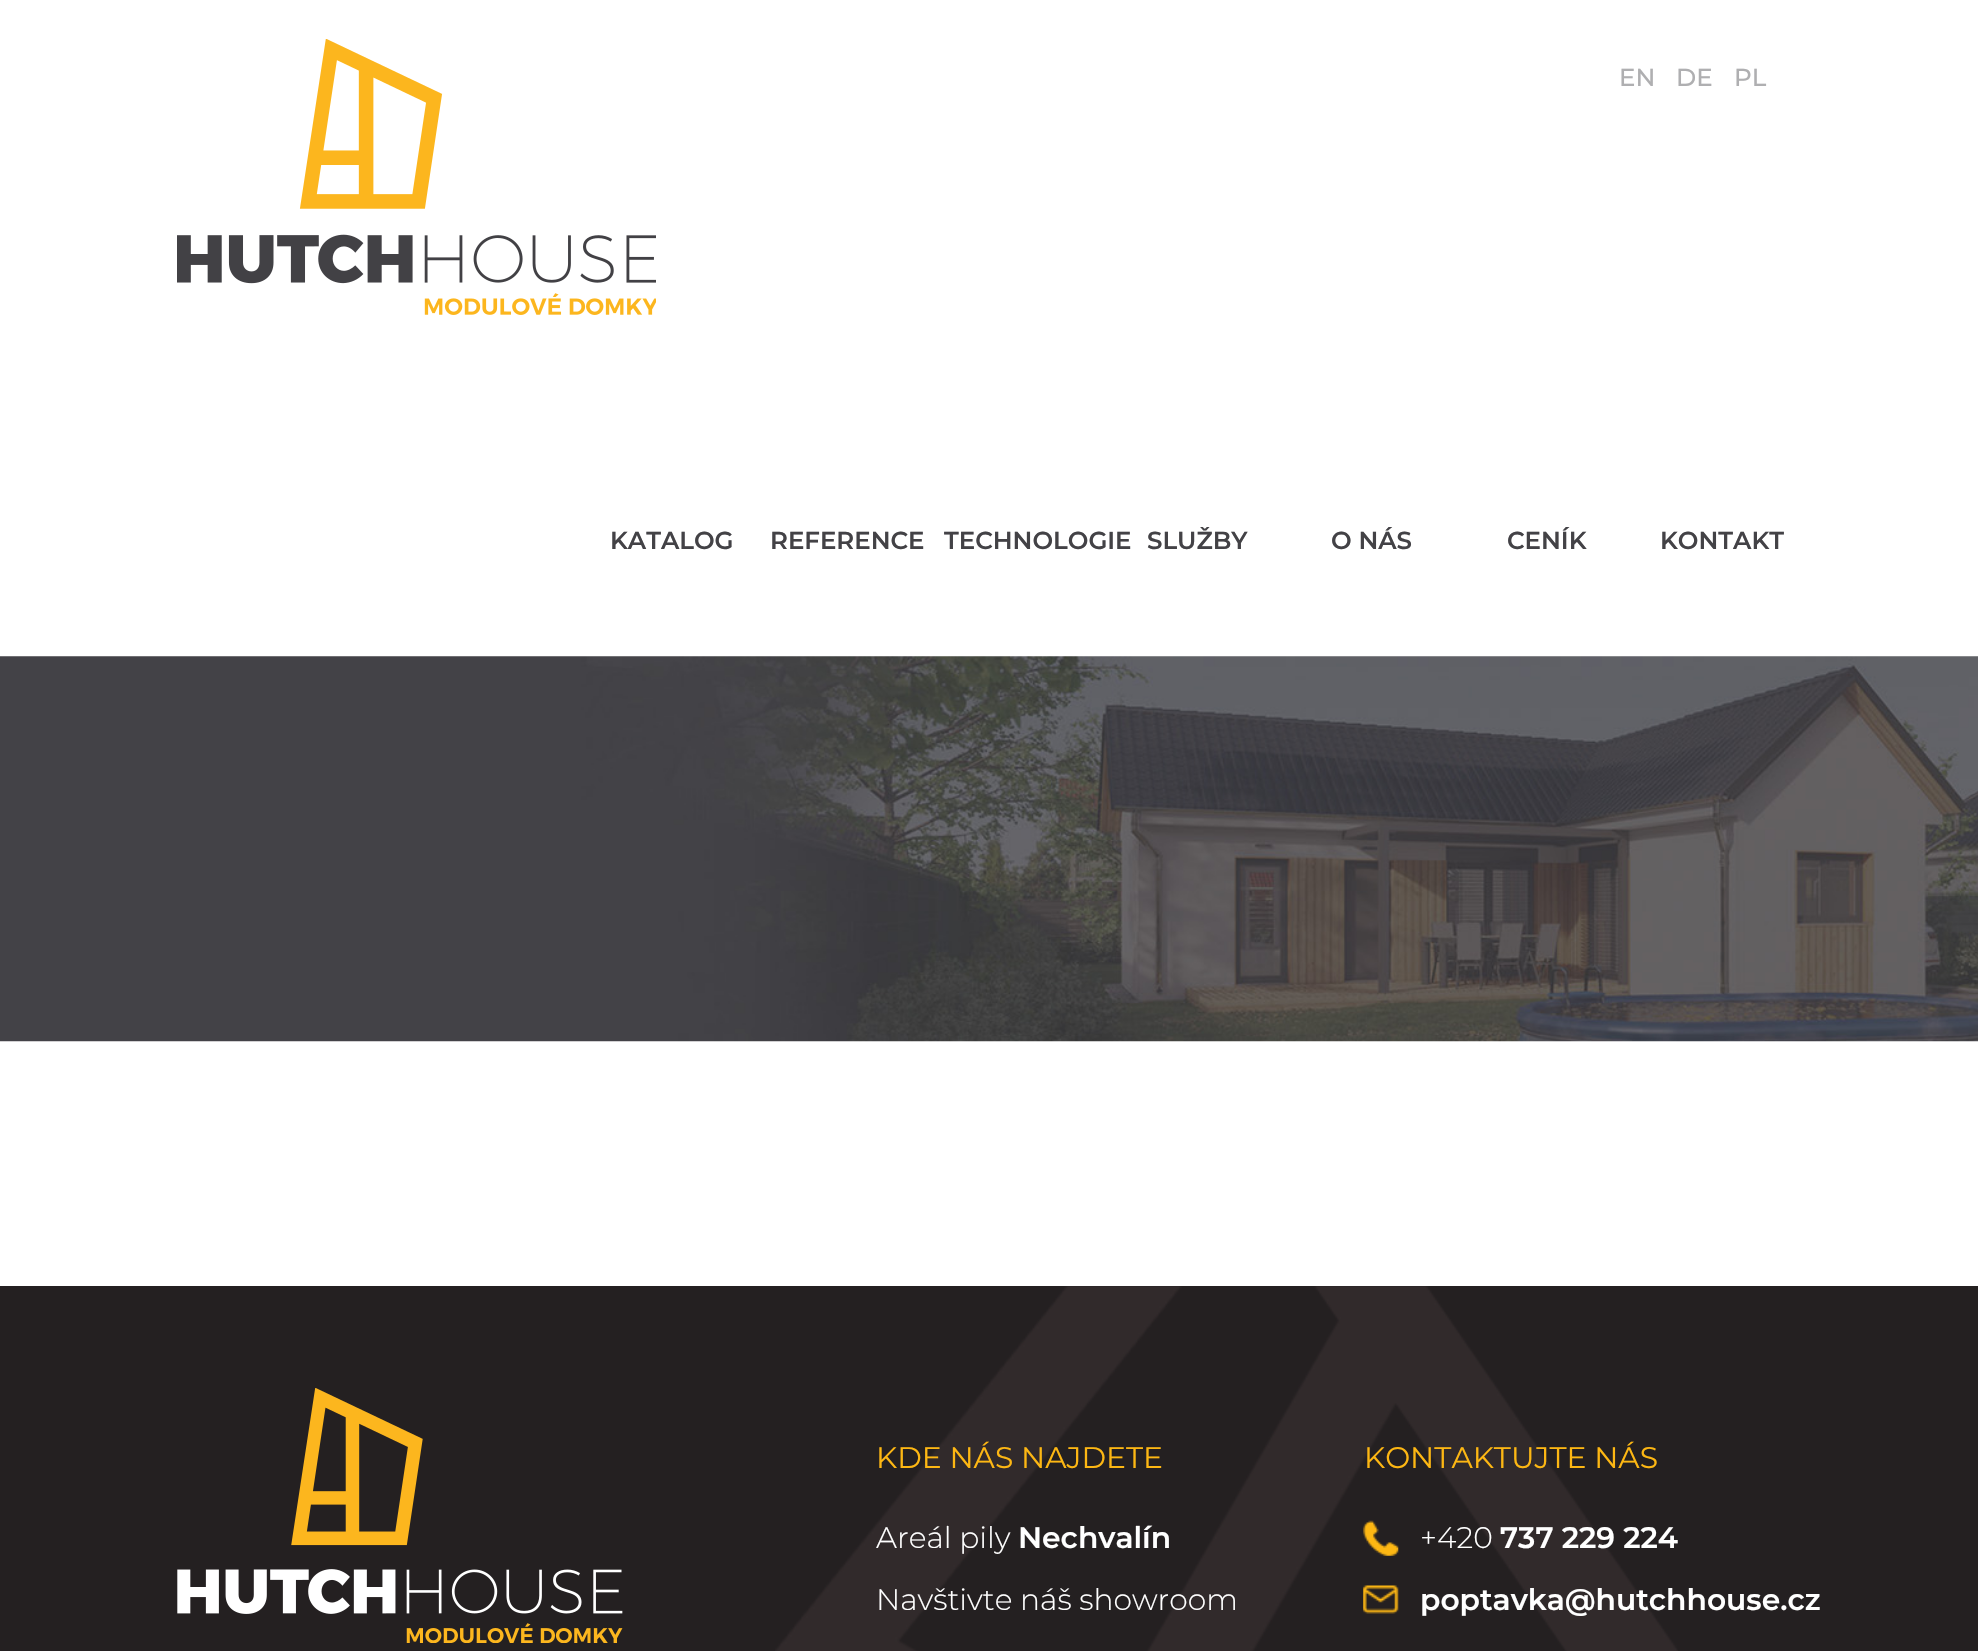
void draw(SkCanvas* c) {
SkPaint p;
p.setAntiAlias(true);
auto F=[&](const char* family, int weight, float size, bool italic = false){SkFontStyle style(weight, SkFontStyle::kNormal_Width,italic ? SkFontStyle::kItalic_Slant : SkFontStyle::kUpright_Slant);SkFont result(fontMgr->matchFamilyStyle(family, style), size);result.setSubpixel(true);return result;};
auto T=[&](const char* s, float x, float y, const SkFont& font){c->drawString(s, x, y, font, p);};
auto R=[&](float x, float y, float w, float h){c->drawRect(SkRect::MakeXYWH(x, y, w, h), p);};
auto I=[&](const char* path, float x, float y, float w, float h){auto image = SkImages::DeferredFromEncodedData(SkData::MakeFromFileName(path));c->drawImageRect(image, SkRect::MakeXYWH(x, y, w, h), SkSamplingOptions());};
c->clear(0xffffffff);
I("1.png",177,39,479,276);
auto f1 = F("Montserrat",500,24.5);
p.setColor(0xffafafb1);
T("EN",1619,86,f1);
T("DE",1676,86,f1);
T("PL",1734,86,f1);
auto f2 = F("Montserrat",600,24.5);
p.setColor(0xff434246);
T("KATALOG",610,549,f2);
T("REFERENCE",770,549,f2);
T("TECHNOLOGIE",944,549,f2);
T("SLUŽBY",1147,549,f2);
T("O NÁS",1331,549,f2);
T("CENÍK",1507,549,f2);
T("KONTAKT",1660,549,f2);
I("2.png",0,656,1978,386);
p.setColor(0xff242021);
R(0,1286,1978,365);
I("3.png",775,1286,903,365);
I("4.png",177,1388,446,255);
auto f3 = F("Montserrat",400,29.75);
p.setColor(0xfffdb713);
T("KDE NÁS NAJDETE",876,1468,f3);
auto f4 = F("Montserrat",300,29.75);
p.setColor(0xffffffff);
T("Areál pily",876,1548,f4);
auto f5 = F("Montserrat",600,29.75);
T("Nechvalín",1018,1548,f5);
T("Navštivte náš showroom",876,1610,f4);
p.setColor(0xfffdb713);
T("KONTAKTUJTE NÁS",1364,1468,f3);
I("5.png",1363,1520,36,36);
p.setColor(0xffffffff);
T("+420",1420,1548,f4);
T("737 229 224",1500,1548,f5);
I("6.png",1363,1585,36,29);
T("poptavka@hutchhouse.cz",1420,1610,f5);
}
